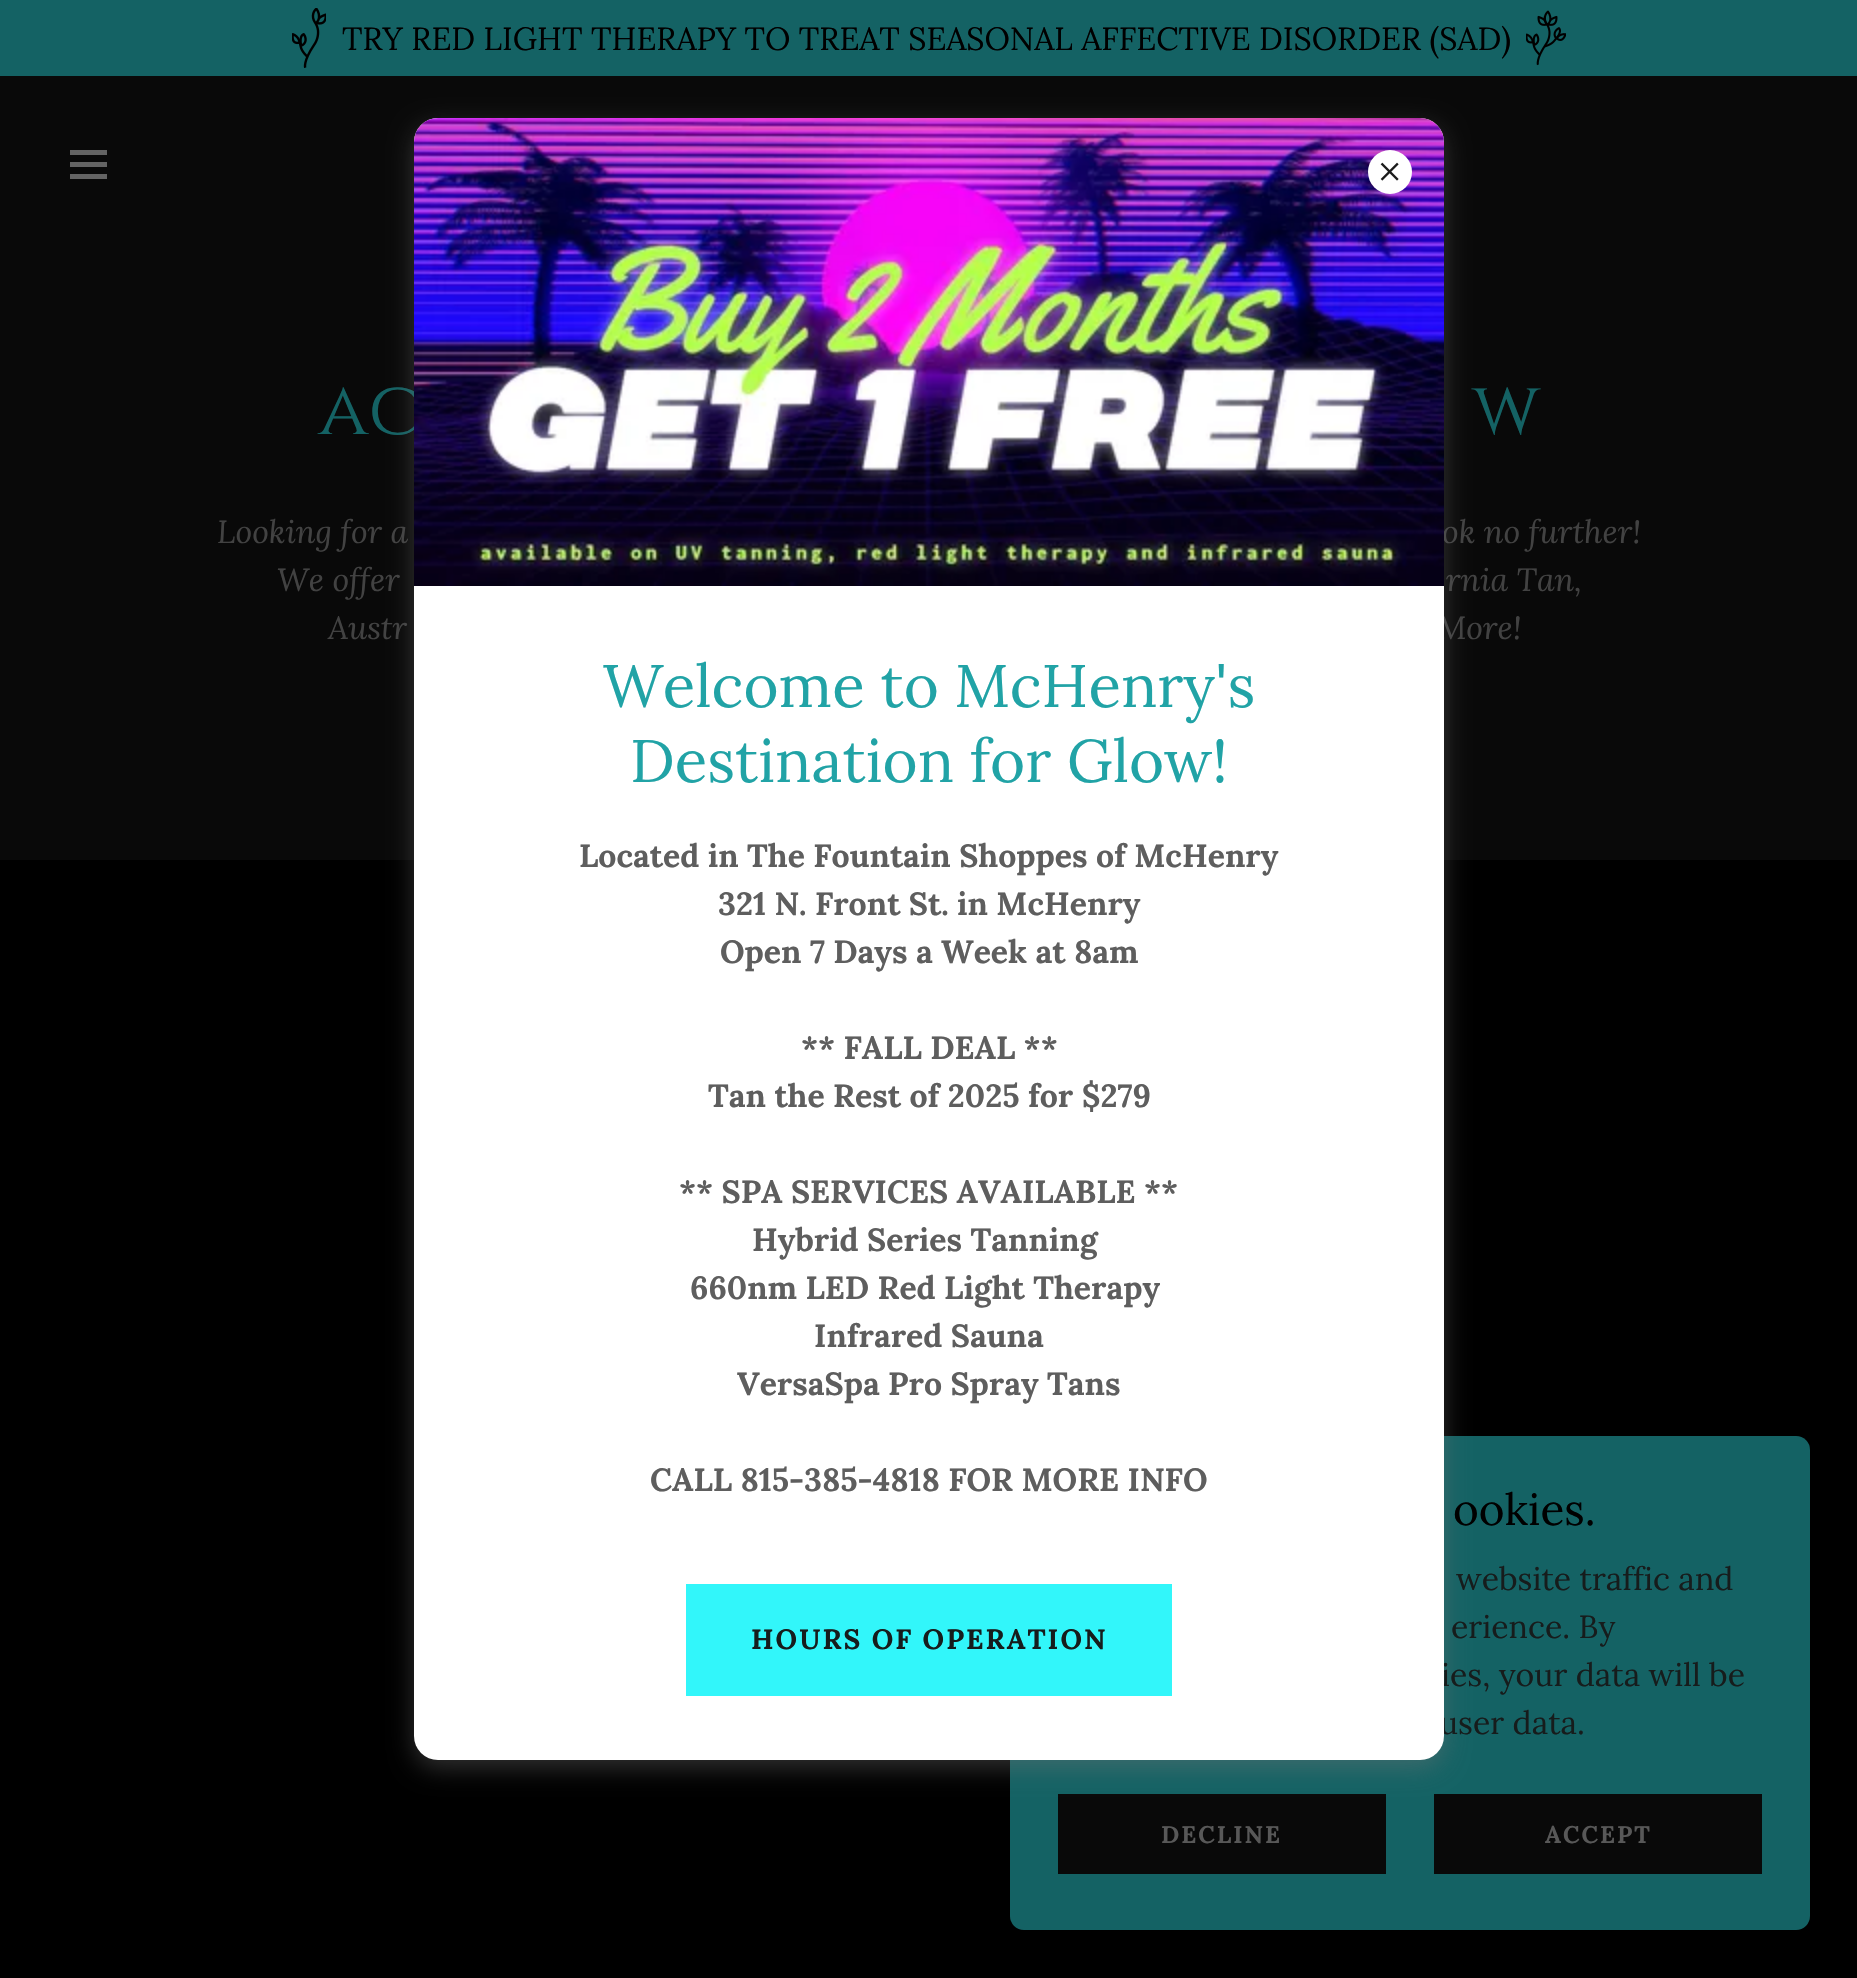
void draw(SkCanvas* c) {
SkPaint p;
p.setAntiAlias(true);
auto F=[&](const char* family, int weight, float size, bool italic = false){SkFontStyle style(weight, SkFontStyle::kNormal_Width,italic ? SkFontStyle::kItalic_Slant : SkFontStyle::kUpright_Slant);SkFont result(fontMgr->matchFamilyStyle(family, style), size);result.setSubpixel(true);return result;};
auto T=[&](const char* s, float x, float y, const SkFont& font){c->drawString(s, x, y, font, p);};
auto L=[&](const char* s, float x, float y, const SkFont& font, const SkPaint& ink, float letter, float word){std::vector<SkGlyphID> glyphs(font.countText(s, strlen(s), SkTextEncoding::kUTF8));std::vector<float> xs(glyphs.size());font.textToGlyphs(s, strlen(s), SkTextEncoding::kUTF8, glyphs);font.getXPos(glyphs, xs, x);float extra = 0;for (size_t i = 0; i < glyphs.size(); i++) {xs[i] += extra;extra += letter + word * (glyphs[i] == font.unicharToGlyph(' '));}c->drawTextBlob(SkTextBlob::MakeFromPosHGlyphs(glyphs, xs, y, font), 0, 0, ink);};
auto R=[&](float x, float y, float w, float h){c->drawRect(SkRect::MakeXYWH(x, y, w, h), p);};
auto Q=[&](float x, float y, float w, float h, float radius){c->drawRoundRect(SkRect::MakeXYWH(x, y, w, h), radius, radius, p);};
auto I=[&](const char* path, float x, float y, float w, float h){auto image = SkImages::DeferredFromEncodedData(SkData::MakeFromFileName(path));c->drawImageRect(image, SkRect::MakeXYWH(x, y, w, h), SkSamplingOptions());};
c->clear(0xff090909);
p.setColor(0xff146264);
R(0,0,1857,76);
I("1.png",292,8,34,60);
auto f1 = F("Lora",400,32);
p.setColor(0xff000000);
T("TRY RED LIGHT THERAPY TO TREAT SEASONAL AFFECTIVE DISORDER (SAD)",342,50,f1);
I("2.png",1526,10,40,56);
p.setColor(0xff636363);
R(70,150,37,5);
R(70,162,37,5);
R(70,174,37,5);
auto f2 = F("Cinzel",400,76);
p.setColor(0xff146264);
T("ac",318,434,f2);
T("w",1472,434,f2);
auto f3 = F("Lora",400,32,true);
p.setColor(0xff424242);
T("Looking for a",217,543,f3);
T("ok no further!",1442,543,f3);
T("We offer",277,591,f3);
T("rnia Tan,",1446,591,f3);
T("Austr",328,639,f3);
T("More!",1437,639,f3);
p.setColor(0xff000000);
R(0,860,1857,1118);
p.setColor(0xff146264);
Q(1010,1436,800,494,14);
p.setColor(0xff090909);
R(1058,1794,328,80);
R(1434,1794,328,80);
p.setColor(0x66757575);
p.setMaskFilter(SkMaskFilter::MakeBlur(kNormal_SkBlurStyle, 12));
c->drawRoundRect(SkRect::MakeXYWH(414,126,1030,1642),24,24,p);
p.setMaskFilter(nullptr);
p.setColor(0xff161c1c);
T("ies, your data will be",1441,1686,f1);
T("user data.",1439,1734,f1);
p.setColor(0xffffffff);
Q(414,118,1030,1642,24);
I("4.png",414,118,1030,468);
c->drawCircle(1390,172,22,p);
I("3.png",1380,162,19,19);
auto f4 = F("Lora",400,60);
p.setColor(0xff21a3a6);
T("Welcome to McHenry's",603,707,f4);
T("Destination for Glow!",630,782,f4);
auto f5 = F("Lora",700,32);
p.setColor(0xff5e5e5e);
T("Located in The Fountain Shoppes of McHenry",579,867,f5);
T("321 N. Front St. in McHenry",718,915,f5);
T("Open 7 Days a Week at 8am",720,963,f5);
T("** FALL DEAL **",801,1059,f5);
T("Tan the Rest of 2025 for $279",708,1107,f5);
T("** SPA SERVICES AVAILABLE **",679,1203,f5);
T("Hybrid Series Tanning",752,1251,f5);
T("660nm LED Red Light Therapy",690,1299,f5);
T("Infrared Sauna",814,1347,f5);
T("VersaSpa Pro Spray Tans",737,1395,f5);
T("CALL 815-385-4818 FOR MORE INFO",650,1491,f5);
p.setColor(0xff32f6fa);
R(686,1584,486,112);
auto f6 = F("Lora",700,28);
p.setColor(0xff161c1c);
L("HOURS OF OPERATION",751,1649,f6,p,2,0);
auto f7 = F("Lora",400,44);
p.setColor(0xff000000);
T("ookies.",1453,1525,f7);
p.setColor(0xff161c1c);
T("website traffic and",1456,1590,f1);
T("erience. By",1451,1638,f1);
auto f8 = F("Lora",700,24);
p.setColor(0xff585858);
L("DECLINE",1161,1843,f8,p,2,0);
L("ACCEPT",1545,1843,f8,p,2,0);
}
